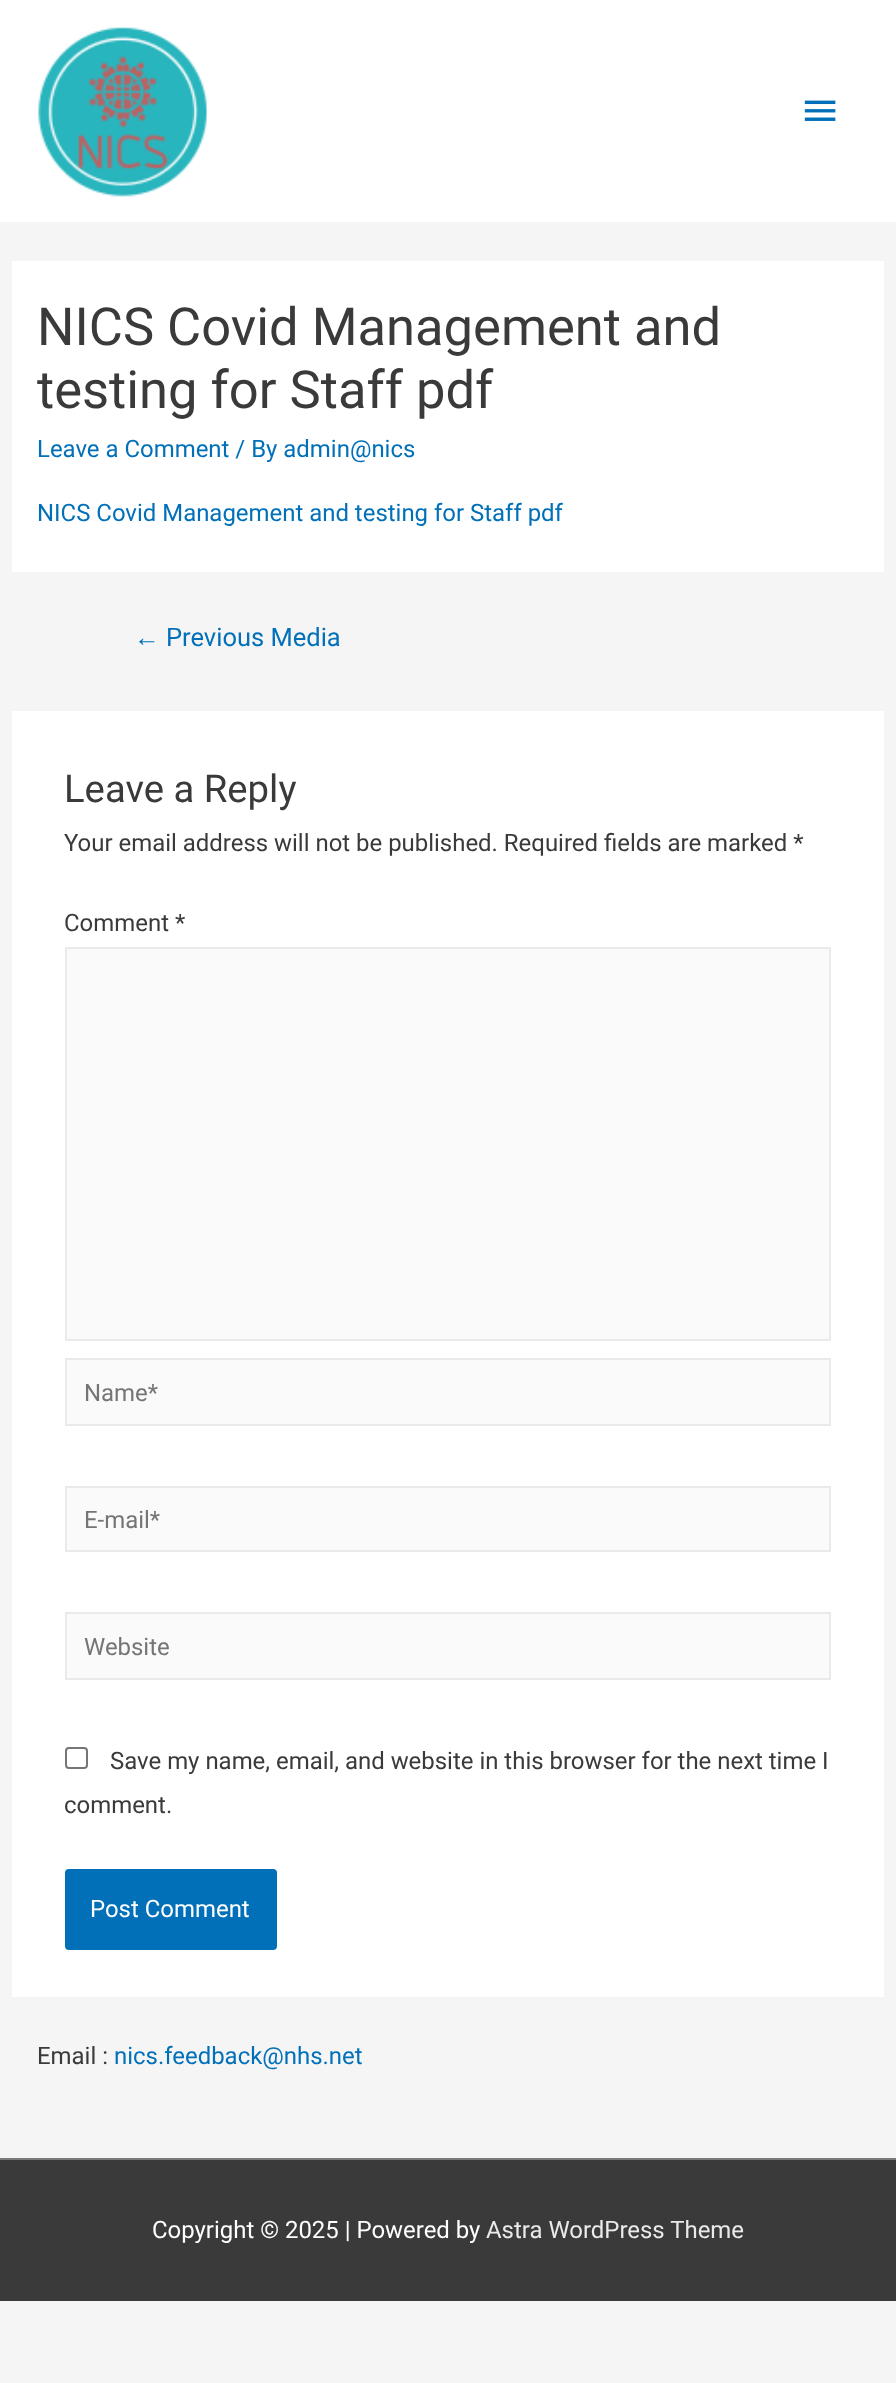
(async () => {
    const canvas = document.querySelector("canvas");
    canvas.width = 896;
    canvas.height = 2383;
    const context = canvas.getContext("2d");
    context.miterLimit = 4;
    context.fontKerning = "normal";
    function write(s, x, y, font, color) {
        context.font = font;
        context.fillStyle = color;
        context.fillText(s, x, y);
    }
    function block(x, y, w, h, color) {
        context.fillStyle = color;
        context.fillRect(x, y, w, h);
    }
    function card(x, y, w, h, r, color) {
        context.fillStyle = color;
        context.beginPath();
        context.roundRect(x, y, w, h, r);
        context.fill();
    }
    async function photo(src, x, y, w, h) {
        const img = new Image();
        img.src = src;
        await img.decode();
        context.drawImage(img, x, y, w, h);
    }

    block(0, 0, 896, 2383, "rgb(245, 245, 245)");
    block(0, 0, 896, 222, "rgb(255, 255, 255)");
    await photo("media/1.png", 38, 26, 170, 171);
    await photo("media/2.png", 804, 100, 32, 21);
    block(12, 261, 872, 311, "rgb(255, 255, 255)");
    write("NICS Covid Management and", 37, 345, "52.5px Roboto", "rgb(58, 58, 58)");
    write("testing for Staff pdf", 37, 408, "52.5px Roboto", "rgb(58, 58, 58)");
    write("Leave a Comment / By admin@nics", 37, 457, "23.95px Roboto", "rgb(1, 112, 185)");
    write("NICS Covid Management and testing for Staff pdf", 37, 521, "23.95px Roboto", "rgb(1, 112, 185)");
    write("←", 134, 646, "25.5px Liberation Sans", "rgb(1, 112, 185)");
    write("Previous Media", 166, 646, "25.5px Roboto", "rgb(1, 112, 185)");
    block(12, 711, 872, 1286, "rgb(255, 255, 255)");
    write("Leave a Reply", 64, 802, "38.25px Roboto", "rgb(58, 58, 58)");
    write("Your email address will not be published. Required fields are marked *", 64, 851, "23.95px Roboto", "rgb(58, 58, 58)");
    write("Comment *", 64, 931, "23.95px Roboto", "rgb(58, 58, 58)");
    context.fillStyle = "rgb(250, 250, 250)";
    context.beginPath();
    context.rect(66, 948, 764, 392);
    context.fill();
    context.strokeStyle = "rgb(234, 234, 234)";
    context.lineWidth = 2;
    context.stroke();
    context.beginPath();
    context.rect(66, 1359, 764, 66);
    context.fill();
    context.stroke();
    write("Name*", 84, 1401, "23.95px Roboto", "rgb(117, 117, 117)");
    context.fillStyle = "rgb(250, 250, 250)";
    context.beginPath();
    context.rect(66, 1487, 764, 64);
    context.fill();
    context.stroke();
    write("E-mail*", 84, 1528, "23.95px Roboto", "rgb(117, 117, 117)");
    context.fillStyle = "rgb(250, 250, 250)";
    context.beginPath();
    context.rect(66, 1613, 764, 66);
    context.fill();
    context.stroke();
    write("Website", 84, 1655, "23.95px Roboto", "rgb(117, 117, 117)");
    context.beginPath();
    context.roundRect(66, 1748, 21, 20, 3);
    context.strokeStyle = "rgb(118, 118, 118)";
    context.stroke();
    write("Save my name, email, and website in this browser for the next time I", 110, 1769, "23.95px Roboto", "rgb(58, 58, 58)");
    write("comment.", 64, 1813, "23.95px Roboto", "rgb(58, 58, 58)");
    card(65, 1869, 212, 81, 4, "rgb(1, 112, 185)");
    write("Post Comment", 90, 1917, "23.95px Roboto", "rgb(255, 255, 255)");
    write("Email :", 37, 2064, "23.95px Roboto", "rgb(58, 58, 58)");
    write("nics.feedback@nhs.net", 114, 2064, "23.95px Roboto", "rgb(1, 112, 185)");
    block(0, 2158, 896, 2, "rgb(122, 122, 122)");
    block(0, 2160, 896, 141, "rgb(58, 58, 58)");
    write("Copyright © 2025 | Powered by", 152, 2238, "23.95px Roboto", "rgb(255, 255, 255)");
    write("Astra WordPress Theme", 486, 2238, "23.95px Roboto", "rgb(234, 234, 234)");
})();
